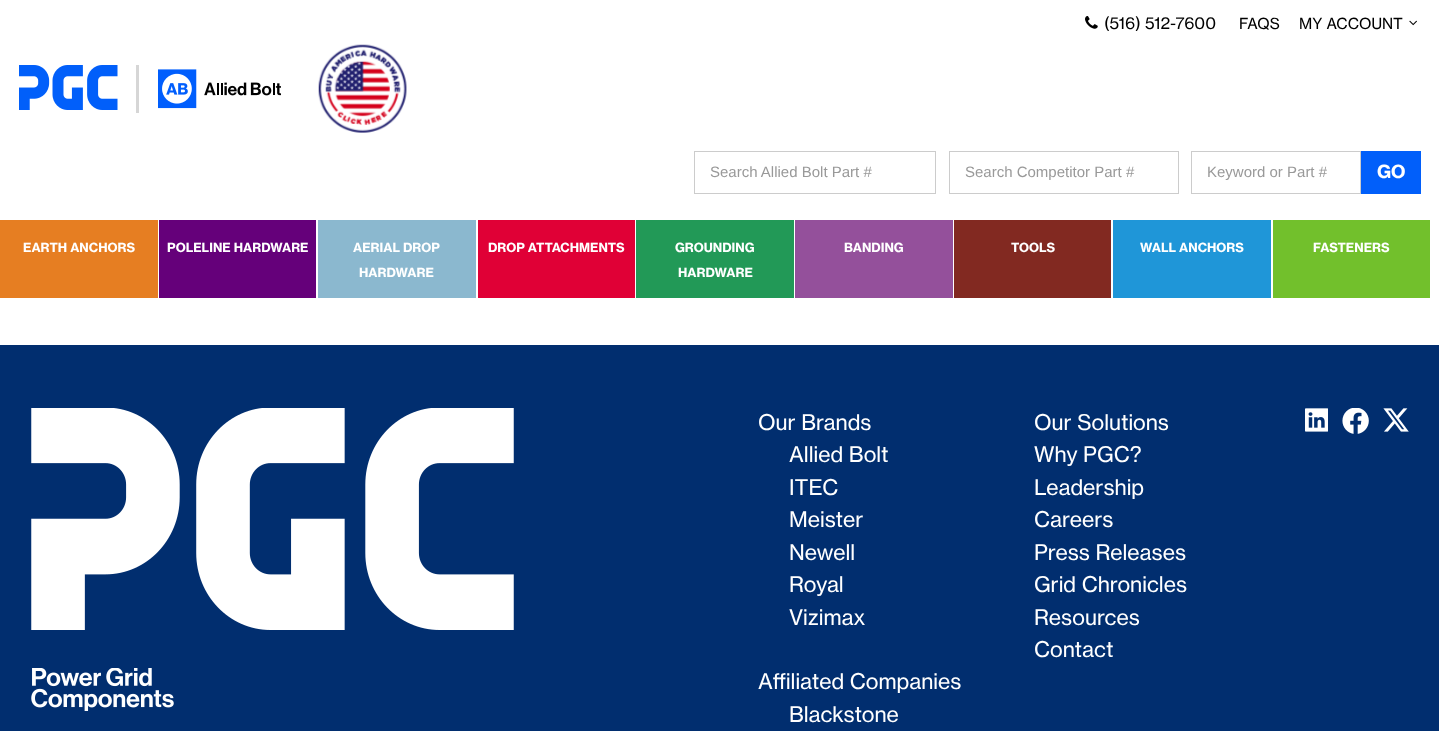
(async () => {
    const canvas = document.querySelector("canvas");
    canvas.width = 1439;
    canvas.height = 731;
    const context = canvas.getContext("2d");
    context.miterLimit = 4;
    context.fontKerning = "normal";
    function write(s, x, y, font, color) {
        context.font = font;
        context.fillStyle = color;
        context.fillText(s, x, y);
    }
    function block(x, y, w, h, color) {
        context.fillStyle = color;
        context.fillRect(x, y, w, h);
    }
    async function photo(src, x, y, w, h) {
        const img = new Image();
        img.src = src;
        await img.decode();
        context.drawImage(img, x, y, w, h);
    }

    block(0, 0, 1439, 731, "rgb(255, 255, 255)");
    await photo("media/1.png", 1085, 16, 13, 13);
    write("(516) 512-7600", 1104, 29, "16.25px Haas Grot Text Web", "rgb(0, 0, 0)");
    write("FAQS", 1239, 29, "15px Haas Grot Text Web", "rgb(0, 0, 0)");
    write("MY ACCOUNT", 1299, 29, "15px Haas Grot Text Web", "rgb(0, 0, 0)");
    await photo("media/2.png", 1409, 20, 8, 6);
    await photo("media/3.png", 19, 65, 99, 45);
    block(136, 65, 3, 48, "rgb(214, 214, 214)");
    await photo("media/4.png", 158, 69, 123, 40);
    await photo("media/5.png", 318, 44, 89, 89);
    context.strokeStyle = "rgb(204, 204, 204)";
    context.strokeRect(694.5, 151.5, 241, 42);
    write("Search Allied Bolt Part #", 710, 177, "15px Liberation Sans", "rgb(153, 153, 153)");
    context.strokeRect(949.5, 151.5, 229, 42);
    write("Search Competitor Part #", 965, 177, "15px Liberation Sans", "rgb(153, 153, 153)");
    context.strokeRect(1191.5, 151.5, 169, 42);
    write("Keyword or Part #", 1207, 177, "15px Liberation Sans", "rgb(153, 153, 153)");
    block(1361, 151, 60, 43, "rgb(1, 95, 250)");
    write("GO", 1377, 178, "bold 18px Haas Grot Text Web", "rgb(255, 255, 255)");
    block(0, 220, 158, 78, "rgb(230, 126, 34)");
    write("EARTH ANCHORS", 23, 252, "bold 12.5px Haas Grot Text Web", "rgb(255, 255, 255)");
    block(159, 220, 157, 78, "rgb(101, 0, 122)");
    write("POLELINE HARDWARE", 167, 252, "bold 12.5px Haas Grot Text Web", "rgb(255, 255, 255)");
    block(318, 220, 158, 78, "rgb(139, 184, 207)");
    write("AERIAL DROP", 353, 252, "bold 12.5px Haas Grot Text Web", "rgb(255, 255, 255)");
    write("HARDWARE", 359, 277, "bold 12.5px Haas Grot Text Web", "rgb(255, 255, 255)");
    block(478, 220, 157, 78, "rgb(224, 0, 54)");
    write("DROP ATTACHMENTS", 488, 252, "bold 12.5px Haas Grot Text Web", "rgb(255, 255, 255)");
    block(636, 220, 158, 78, "rgb(34, 153, 87)");
    write("GROUNDING", 675, 252, "bold 12.5px Haas Grot Text Web", "rgb(255, 255, 255)");
    write("HARDWARE", 678, 277, "bold 12.5px Haas Grot Text Web", "rgb(255, 255, 255)");
    block(795, 220, 158, 78, "rgb(148, 80, 155)");
    write("BANDING", 844, 252, "bold 12.5px Haas Grot Text Web", "rgb(255, 255, 255)");
    block(954, 220, 157, 78, "rgb(130, 41, 33)");
    write("TOOLS", 1011, 252, "bold 12.5px Haas Grot Text Web", "rgb(255, 255, 255)");
    block(1113, 220, 158, 78, "rgb(31, 150, 216)");
    write("WALL ANCHORS", 1140, 252, "bold 12.5px Haas Grot Text Web", "rgb(255, 255, 255)");
    block(1273, 220, 157, 78, "rgb(114, 192, 44)");
    write("FASTENERS", 1313, 252, "bold 12.5px Haas Grot Text Web", "rgb(255, 255, 255)");
    block(0, 345, 1439, 386, "rgb(1, 46, 111)");
    await photo("media/6.png", 31, 408, 483, 222);
    await photo("media/7.png", 31, 668, 143, 43);
    write("Our Brands", 758, 430, "21.25px Haas Grot Text Web", "rgb(255, 255, 255)");
    write("Allied Bolt", 789, 462, "21.25px Haas Grot Text Web", "rgb(255, 255, 255)");
    write("ITEC", 789, 495, "21.25px Haas Grot Text Web", "rgb(255, 255, 255)");
    write("Meister", 789, 527, "21.25px Haas Grot Text Web", "rgb(255, 255, 255)");
    write("Newell", 789, 560, "21.25px Haas Grot Text Web", "rgb(255, 255, 255)");
    write("Royal", 789, 592, "21.25px Haas Grot Text Web", "rgb(255, 255, 255)");
    write("Vizimax", 789, 625, "21.25px Haas Grot Text Web", "rgb(255, 255, 255)");
    write("Affiliated Companies", 758, 689, "21.25px Haas Grot Text Web", "rgb(255, 255, 255)");
    write("Blackstone", 789, 722, "21.25px Haas Grot Text Web", "rgb(255, 255, 255)");
    write("Our Solutions", 1034, 430, "21.25px Haas Grot Text Web", "rgb(255, 255, 255)");
    write("Why PGC?", 1034, 462, "21.25px Haas Grot Text Web", "rgb(255, 255, 255)");
    write("Leadership", 1034, 495, "21.25px Haas Grot Text Web", "rgb(255, 255, 255)");
    write("Careers", 1034, 527, "21.25px Haas Grot Text Web", "rgb(255, 255, 255)");
    write("Press Releases", 1034, 560, "21.25px Haas Grot Text Web", "rgb(255, 255, 255)");
    write("Grid Chronicles", 1034, 592, "21.25px Haas Grot Text Web", "rgb(255, 255, 255)");
    write("Resources", 1034, 625, "21.25px Haas Grot Text Web", "rgb(255, 255, 255)");
    write("Contact", 1034, 657, "21.25px Haas Grot Text Web", "rgb(255, 255, 255)");
    await photo("media/8.png", 1305, 408, 23, 24);
    await photo("media/9.png", 1342, 408, 27, 26);
    await photo("media/10.png", 1383, 408, 26, 24);
})();
